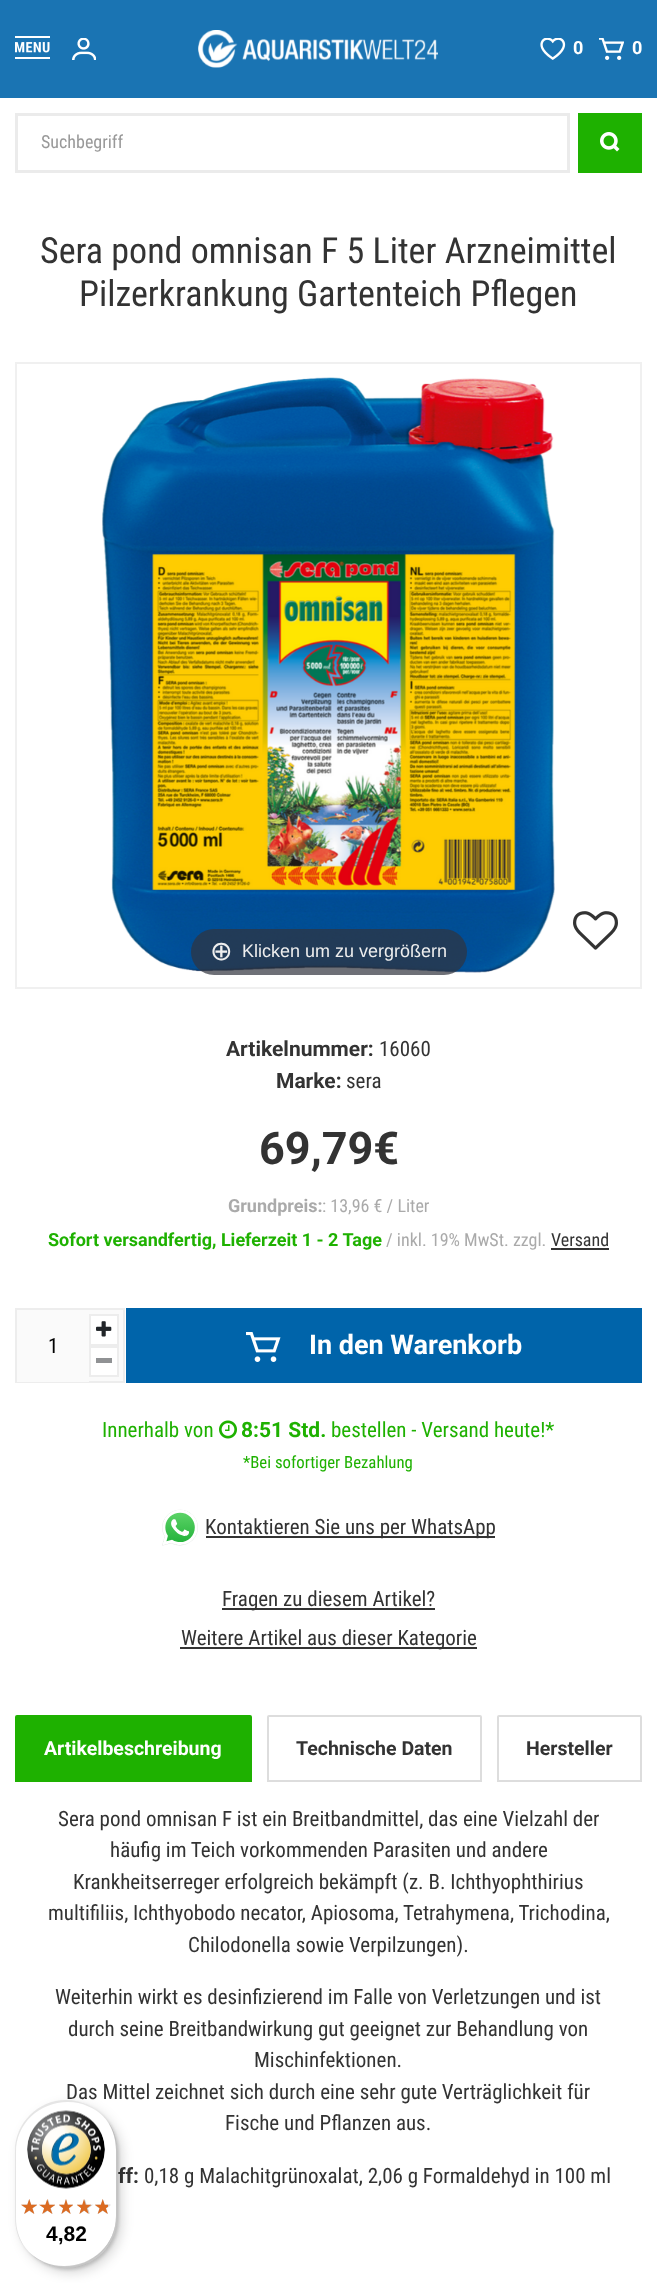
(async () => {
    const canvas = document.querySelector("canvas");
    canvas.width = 657;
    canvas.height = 2283;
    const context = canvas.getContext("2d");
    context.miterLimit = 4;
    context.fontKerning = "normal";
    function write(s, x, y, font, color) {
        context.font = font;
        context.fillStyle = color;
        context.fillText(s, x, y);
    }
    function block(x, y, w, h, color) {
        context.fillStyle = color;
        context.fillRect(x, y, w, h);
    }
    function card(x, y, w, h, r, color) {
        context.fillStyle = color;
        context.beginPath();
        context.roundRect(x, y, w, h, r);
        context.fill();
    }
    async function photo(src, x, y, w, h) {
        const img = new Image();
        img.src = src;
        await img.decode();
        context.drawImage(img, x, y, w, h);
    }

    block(0, 0, 657, 2283, "rgb(255, 255, 255)");
    block(0, 0, 657, 98, "rgb(26, 116, 179)");
    block(15, 36, 35, 2, "rgb(255, 255, 255)");
    await photo("media/1.png", 15, 42, 35, 11);
    block(15, 57, 35, 2, "rgb(255, 255, 255)");
    await photo("media/2.png", 72, 38, 24, 22);
    await photo("media/3.png", 198, 30, 240, 38);
    await photo("media/4.png", 540, 38, 26, 22);
    write("0", 573, 54, "bold 18px Roboto", "rgb(255, 255, 255)");
    await photo("media/5.png", 599, 38, 25, 22);
    write("0", 632, 54, "bold 18px Roboto", "rgb(255, 255, 255)");
    context.strokeStyle = "rgb(235, 235, 235)";
    context.lineWidth = 3;
    context.strokeRect(16.5, 114.5, 552, 57);
    write("Suchbegriff", 41, 148, "18px Roboto Condensed", "rgb(153, 153, 153)");
    block(578, 113, 64, 60, "rgb(30, 177, 0)");
    await photo("media/6.png", 600, 132, 20, 20);
    write("Sera pond omnisan F 5 Liter Arzneimittel", 40, 263, "36px Roboto Condensed", "rgb(51, 51, 51)");
    write("Pilzerkrankung Gartenteich Pflegen", 79, 306, "36px Roboto Condensed", "rgb(51, 51, 51)");
    context.strokeStyle = "rgb(240, 240, 240)";
    context.lineWidth = 2;
    context.strokeRect(16, 363, 625, 625);
    await photo("media/7.png", 102, 377, 453, 596);
    card(191, 929, 276, 46, 23, "rgba(49, 51, 61, 0.7)");
    write("⊕", 210, 960, "27px DejaVu Sans", "rgb(238, 238, 238)");
    write("Klicken um zu vergrößern", 242, 957, "18px Liberation Sans", "rgb(238, 238, 238)");
    await photo("media/8.png", 573, 911, 45, 39);
    write("Artikelnummer:", 226, 1056, "bold 21px Roboto", "rgb(51, 51, 51)");
    write("16060", 379, 1056, "21px Roboto Condensed", "rgb(51, 51, 51)");
    write("Marke:", 276, 1088, "bold 21px Roboto", "rgb(51, 51, 51)");
    write("sera", 346, 1088, "21px Roboto Condensed", "rgb(51, 51, 51)");
    write("69,79€", 259, 1164, "bold 45px Roboto", "rgb(51, 51, 51)");
    write("Grundpreis:", 228, 1212, "bold 18px Roboto", "rgb(170, 170, 170)");
    write(": 13,96 € / Liter", 322, 1212, "18px Roboto Condensed", "rgb(170, 170, 170)");
    write("Sofort versandfertig, Lieferzeit 1 - 2 Tage", 48, 1246, "bold 18px Roboto", "rgb(30, 177, 0)");
    write("/ inkl. 19% MwSt. zzgl.", 386, 1246, "18px Roboto Condensed", "rgb(170, 170, 170)");
    write("Versand", 551, 1246, "18px Roboto Condensed", "rgb(51, 51, 51)");
    block(551, 1248, 58, 2, "rgb(51, 51, 51)");
    block(89, 1310, 34, 71, "rgb(250, 250, 250)");
    context.strokeStyle = "rgb(237, 237, 237)";
    context.strokeRect(16, 1309, 108, 73);
    block(17, 1310, 72, 72, "rgb(250, 250, 250)");
    write("1", 48, 1353, "21px Roboto Condensed", "rgb(0, 0, 0)");
    context.fillStyle = "rgb(255, 255, 255)";
    context.beginPath();
    context.rect(90, 1315, 28, 30);
    context.fill();
    context.stroke();
    await photo("media/9.png", 96, 1321, 16, 16);
    context.beginPath();
    context.rect(90, 1347, 28, 29);
    context.fill();
    context.stroke();
    block(96, 1358, 16, 5, "rgb(144, 146, 148)");
    block(126, 1308, 516, 75, "rgb(0, 100, 170)");
    await photo("media/10.png", 246, 1332, 35, 30);
    write("In den Warenkorb", 309, 1354, "bold 27px Roboto", "rgb(255, 255, 255)");
    write("Innerhalb von", 102, 1437, "21px Roboto Condensed", "rgb(30, 177, 0)");
    await photo("media/11.png", 219, 1420, 18, 19);
    write("8:51 Std.", 241, 1437, "bold 21px Roboto", "rgb(30, 177, 0)");
    write("bestellen - Versand heute!*", 331, 1437, "21px Roboto Condensed", "rgb(30, 177, 0)");
    write("*Bei sofortiger Bezahlung", 243, 1468, "16.75px Roboto Condensed", "rgb(30, 177, 0)");
    await photo("media/12.png", 162, 1509, 36, 37);
    block(206, 1536, 289, 2, "rgb(51, 51, 51)");
    write("Kontaktieren Sie uns per WhatsApp", 205, 1534, "21px Roboto Condensed", "rgb(51, 51, 51)");
    block(222, 1608, 213, 2, "rgb(51, 51, 51)");
    write("Fragen zu diesem Artikel?", 222, 1606, "21px Roboto Condensed", "rgb(51, 51, 51)");
    block(180, 1647, 297, 2, "rgb(51, 51, 51)");
    write("Weitere Artikel aus dieser Kategorie", 181, 1645, "21px Roboto Condensed", "rgb(51, 51, 51)");
    context.fillStyle = "rgb(30, 177, 0)";
    context.beginPath();
    context.roundRect(16, 1716, 235, 65, [1, 1, 0, 0]);
    context.fill();
    context.strokeStyle = "rgb(30, 177, 0)";
    context.stroke();
    write("Artikelbeschreibung", 44, 1755, "bold 19.5px Roboto", "rgb(255, 255, 255)");
    context.beginPath();
    context.roundRect(268, 1716, 213, 65, [1, 1, 0, 0]);
    context.strokeStyle = "rgb(221, 221, 221)";
    context.stroke();
    write("Technische Daten", 296, 1755, "bold 19.5px Roboto", "rgb(51, 51, 51)");
    context.beginPath();
    context.roundRect(498, 1716, 143, 65, [1, 1, 0, 0]);
    context.stroke();
    write("Hersteller", 526, 1755, "bold 19.5px Roboto", "rgb(51, 51, 51)");
    write("Sera pond omnisan F ist ein Breitbandmittel, das eine Vielzahl der", 58, 1826, "21px Roboto Condensed", "rgb(51, 51, 51)");
    write("häufig im Teich vorkommenden Parasiten und andere", 110, 1857, "21px Roboto Condensed", "rgb(51, 51, 51)");
    write("Krankheitserreger erfolgreich bekämpft (z. B. Ichthyophthirius", 73, 1889, "21px Roboto Condensed", "rgb(51, 51, 51)");
    write("multifiliis, Ichthyobodo necator, Apiosoma, Tetrahymena, Trichodina,", 48, 1920, "21px Roboto Condensed", "rgb(51, 51, 51)");
    write("Chilodonella sowie Verpilzungen).", 188, 1952, "21px Roboto Condensed", "rgb(51, 51, 51)");
    write("Weiterhin wirkt es desinfizierend im Falle von Verletzungen und ist", 55, 2004, "21px Roboto Condensed", "rgb(51, 51, 51)");
    write("durch seine Breitbandwirkung gut geeignet zur Behandlung von", 68, 2036, "21px Roboto Condensed", "rgb(51, 51, 51)");
    write("Mischinfektionen.", 254, 2067, "21px Roboto Condensed", "rgb(51, 51, 51)");
    write("Das Mittel zeichnet sich durch eine sehr gute Verträglichkeit für", 66, 2099, "21px Roboto Condensed", "rgb(51, 51, 51)");
    write("Fische und Pflanzen aus.", 225, 2130, "21px Roboto Condensed", "rgb(51, 51, 51)");
    write("ff:", 118, 2183, "bold 21px Roboto", "rgb(51, 51, 51)");
    write("0,18 g Malachitgrünoxalat, 2,06 g Formaldehyd in 100 ml", 144, 2183, "21px Roboto Condensed", "rgb(51, 51, 51)");
    context.fillStyle = "rgba(0, 0, 0, 0.15)";
    context.filter = "blur(6px)";
    context.beginPath();
    context.roundRect(20, 2105, 102, 168, 51);
    context.fill();
    context.filter = "none";
    context.filter = "blur(1.5px)";
    context.beginPath();
    context.roundRect(17, 2102, 102, 168, 51);
    context.fill();
    context.filter = "none";
    card(15, 2100, 102, 168, 51, "rgb(255, 255, 255)");
    context.fillStyle = "rgba(0, 0, 0, 0.1)";
    context.beginPath();
    context.moveTo(68, 2102);
    context.bezierCurveTo(82, 2102, 95, 2108, 104, 2117);
    context.bezierCurveTo(95, 2107, 81, 2100, 66, 2100);
    context.bezierCurveTo(38, 2100, 15, 2123, 15, 2151);
    context.lineTo(15, 2217);
    context.bezierCurveTo(15, 2228, 18, 2238, 24, 2246);
    context.bezierCurveTo(19, 2238, 16, 2228, 16, 2218);
    context.lineTo(16, 2152);
    context.bezierCurveTo(16, 2124, 39, 2102, 68, 2102);
    context.closePath();
    context.fill();
    context.fillStyle = "rgba(0, 0, 0, 0.2)";
    context.beginPath();
    context.moveTo(28, 2251);
    context.bezierCurveTo(37, 2261, 51, 2268, 66, 2268);
    context.bezierCurveTo(94, 2268, 117, 2245, 117, 2217);
    context.lineTo(117, 2151);
    context.bezierCurveTo(117, 2140, 114, 2130, 108, 2122);
    context.bezierCurveTo(113, 2130, 116, 2140, 116, 2150);
    context.lineTo(116, 2216);
    context.bezierCurveTo(116, 2244, 93, 2266, 64, 2266);
    context.bezierCurveTo(50, 2266, 37, 2260, 28, 2251);
    context.closePath();
    context.fill();
    context.fillStyle = "rgba(50, 50, 50, 0.2)";
    context.beginPath();
    context.moveTo(27, 2250);
    context.bezierCurveTo(37, 2261, 51, 2268, 66, 2268);
    context.bezierCurveTo(94, 2268, 117, 2245, 117, 2217);
    context.lineTo(117, 2151);
    context.bezierCurveTo(117, 2136, 110, 2122, 99, 2112);
    context.bezierCurveTo(110, 2122, 116, 2135, 116, 2150);
    context.lineTo(116, 2216);
    context.bezierCurveTo(116, 2244, 93, 2267, 65, 2267);
    context.bezierCurveTo(50, 2267, 37, 2261, 27, 2250);
    context.closePath();
    context.fill();
    context.fillStyle = "rgba(255, 255, 255, 0.3)";
    context.beginPath();
    context.moveTo(27, 2250);
    context.bezierCurveTo(37, 2261, 51, 2268, 66, 2268);
    context.bezierCurveTo(94, 2268, 117, 2245, 117, 2217);
    context.lineTo(117, 2151);
    context.bezierCurveTo(117, 2136, 110, 2122, 99, 2112);
    context.bezierCurveTo(110, 2122, 116, 2135, 116, 2150);
    context.lineTo(116, 2216);
    context.bezierCurveTo(116, 2244, 93, 2267, 65, 2267);
    context.bezierCurveTo(50, 2267, 37, 2261, 27, 2250);
    context.closePath();
    context.fill();
    await photo("media/13.png", 27, 2110, 78, 79);
    await photo("media/14.png", 21, 2199, 16, 15);
    await photo("media/15.png", 41, 2199, 14, 15);
    await photo("media/16.png", 59, 2199, 14, 15);
    await photo("media/17.png", 77, 2199, 16, 15);
    await photo("media/18.png", 95, 2199, 16, 15);
    await photo("media/19.png", 21, 2199, 16, 15);
    await photo("media/20.png", 39, 2199, 16, 15);
    await photo("media/21.png", 59, 2199, 14, 15);
    await photo("media/22.png", 77, 2199, 14, 15);
    await photo("media/23.png", 95, 2199, 13, 15);
    write("4,82", 46, 2241, "bold 21px Liberation Sans", "rgb(0, 0, 0)");
})();
